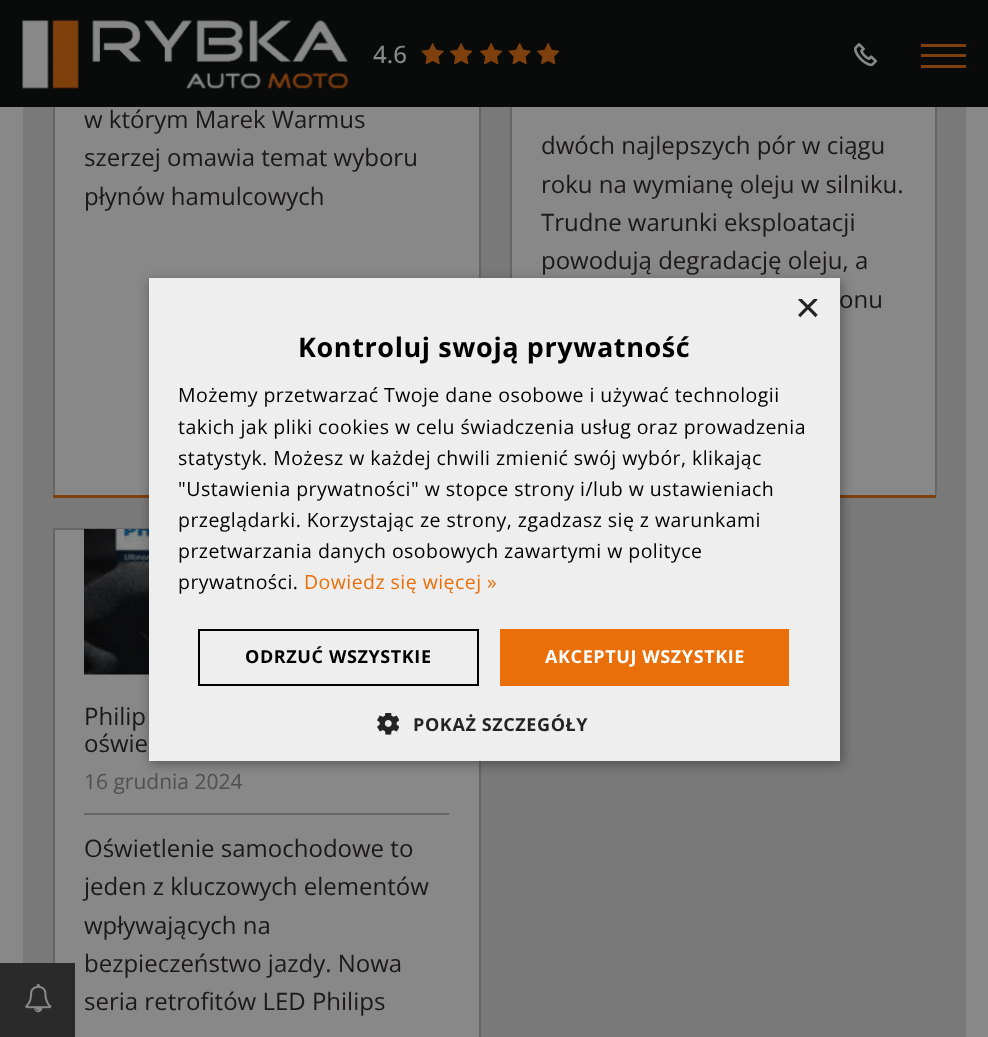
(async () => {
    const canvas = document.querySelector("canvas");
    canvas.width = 988;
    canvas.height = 1037;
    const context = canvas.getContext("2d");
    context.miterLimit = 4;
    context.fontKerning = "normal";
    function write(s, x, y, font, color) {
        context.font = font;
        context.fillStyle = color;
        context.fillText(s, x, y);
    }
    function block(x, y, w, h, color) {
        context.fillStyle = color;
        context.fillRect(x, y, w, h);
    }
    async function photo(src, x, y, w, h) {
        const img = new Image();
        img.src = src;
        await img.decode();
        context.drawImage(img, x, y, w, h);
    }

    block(0, 0, 988, 1037, "rgb(136, 136, 136)");
    block(0, 0, 988, 107, "rgb(9, 10, 10)");
    await photo("media/1.png", 22, 20, 327, 69);
    write("4.6", 373, 63, "500 24px Open Sans", "rgb(136, 136, 136)");
    await photo("media/2.png", 421, 43, 23, 22);
    await photo("media/3.png", 450, 43, 23, 22);
    await photo("media/3.png", 480, 43, 23, 22);
    await photo("media/2.png", 508, 43, 23, 22);
    await photo("media/3.png", 537, 43, 23, 22);
    await photo("media/4.png", 853, 43, 25, 24);
    block(921, 54, 45, 3, "rgb(126, 64, 13)");
    block(921, 44, 45, 3, "rgb(126, 64, 13)");
    block(921, 65, 45, 3, "rgb(126, 64, 13)");
    block(23, 107, 943, 930, "rgb(121, 121, 121)");
    block(55, 530, 424, 507, "rgb(136, 136, 136)");
    block(0, 963, 75, 74, "rgb(42, 42, 42)");
    await photo("media/5.png", 25, 983, 27, 30);
    block(53, 495, 96, 3, "rgb(126, 64, 13)");
    block(55, 107, 424, 388, "rgb(136, 136, 136)");
    block(479, 107, 2, 171, "rgb(102, 102, 102)");
    block(53, 107, 2, 388, "rgb(102, 102, 102)");
    write("w którym Marek Warmus", 84, 128, "24px Open Sans", "rgb(26, 24, 25)");
    write("szerzej omawia temat wyboru", 84, 166, "24px Open Sans", "rgb(26, 24, 25)");
    write("płynów hamulcowych", 84, 205, "24px Open Sans", "rgb(26, 24, 25)");
    block(840, 495, 96, 3, "rgb(126, 64, 13)");
    block(512, 107, 423, 388, "rgb(136, 136, 136)");
    block(935, 107, 2, 388, "rgb(102, 102, 102)");
    block(510, 107, 2, 171, "rgb(102, 102, 102)");
    write("dwóch najlepszych pór w ciągu", 541, 154, "24px Open Sans", "rgb(26, 24, 25)");
    write("roku na wymianę oleju w silniku.", 541, 193, "24px Open Sans", "rgb(26, 24, 25)");
    write("Trudne warunki eksploatacji", 541, 231, "24px Open Sans", "rgb(26, 24, 25)");
    write("powodują degradację oleju, a", 541, 269, "24px Open Sans", "rgb(26, 24, 25)");
    write("onu", 839, 308, "24px Open Sans", "rgb(26, 24, 25)");
    block(53, 528, 96, 2, "rgb(102, 102, 102)");
    block(479, 761, 2, 276, "rgb(102, 102, 102)");
    block(53, 528, 2, 435, "rgb(102, 102, 102)");
    await photo("media/6.png", 84, 529, 65, 146);
    write("Philip", 84, 725, "24px Open Sans", "rgb(26, 24, 25)");
    write("oświe", 84, 752, "24px Open Sans", "rgb(26, 24, 25)");
    block(84, 813, 365, 2, "rgb(102, 102, 102)");
    write("16 grudnia 2024", 84, 789, "21px Open Sans", "rgb(80, 80, 80)");
    write("Oświetlenie samochodowe to", 84, 857, "24px Open Sans", "rgb(26, 24, 25)");
    write("jeden z kluczowych elementów", 84, 895, "24px Open Sans", "rgb(26, 24, 25)");
    write("wpływających na", 84, 934, "24px Open Sans", "rgb(26, 24, 25)");
    write("bezpieczeństwo jazdy. Nowa", 84, 972, "24px Open Sans", "rgb(26, 24, 25)");
    write("seria retrofitów LED Philips", 84, 1010, "24px Open Sans", "rgb(26, 24, 25)");
    context.fillStyle = "rgba(0, 0, 0, 0.35)";
    context.filter = "blur(6px)";
    context.beginPath();
    context.rect(150, 281, 692, 483);
    context.fill();
    context.filter = "none";
    block(149, 278, 691, 483, "rgb(238, 238, 238)");
    context.save();
    context.beginPath();
    context.rect(795, 299, 23, 22);
    context.clip();
    write("×", 795, 322, "44px Liberation Sans", "rgb(36, 36, 36)");
    context.restore();
    context.letterSpacing = "0.6px";
    write("Kontroluj swoją prywatność", 298, 357, "bold 27px Open Sans", "rgb(0, 0, 0)");
    context.letterSpacing = "0.45px";
    write("Możemy przetwarzać Twoje dane osobowe i używać technologii", 178, 402, "19.5px Open Sans", "rgb(0, 0, 0)");
    write("takich jak pliki cookies w celu świadczenia usług oraz prowadzenia", 178, 434, "19.5px Open Sans", "rgb(0, 0, 0)");
    write("statystyk. Możesz w każdej chwili zmienić swój wybór, klikając", 178, 465, "19.5px Open Sans", "rgb(0, 0, 0)");
    write("\"Ustawienia prywatności\" w stopce strony i/lub w ustawieniach", 178, 496, "19.5px Open Sans", "rgb(0, 0, 0)");
    write("przeglądarki. Korzystając ze strony, zgadzasz się z warunkami", 178, 527, "19.5px Open Sans", "rgb(0, 0, 0)");
    write("przetwarzania danych osobowych zawartymi w polityce", 178, 558, "19.5px Open Sans", "rgb(0, 0, 0)");
    write("prywatności.", 178, 589, "19.5px Open Sans", "rgb(0, 0, 0)");
    write("Dowiedz się więcej »", 304, 589, "19.5px Open Sans", "rgb(234, 111, 8)");
    context.strokeStyle = "rgb(0, 0, 0)";
    context.lineWidth = 2;
    context.strokeRect(199, 630, 279, 55);
    context.letterSpacing = "0.6px";
    write("ODRZUĆ WSZYSTKIE", 245, 663, "bold 18px Open Sans", "rgb(0, 0, 0)");
    block(500, 629, 289, 57, "rgb(234, 111, 8)");
    write("AKCEPTUJ WSZYSTKIE", 545, 663, "bold 18px Open Sans", "rgb(255, 255, 255)");
    await photo("media/7.png", 377, 713, 22, 22);
    write("POKAŻ SZCZEGÓŁY", 413, 731, "bold 18px Open Sans", "rgb(36, 36, 36)");
})();
